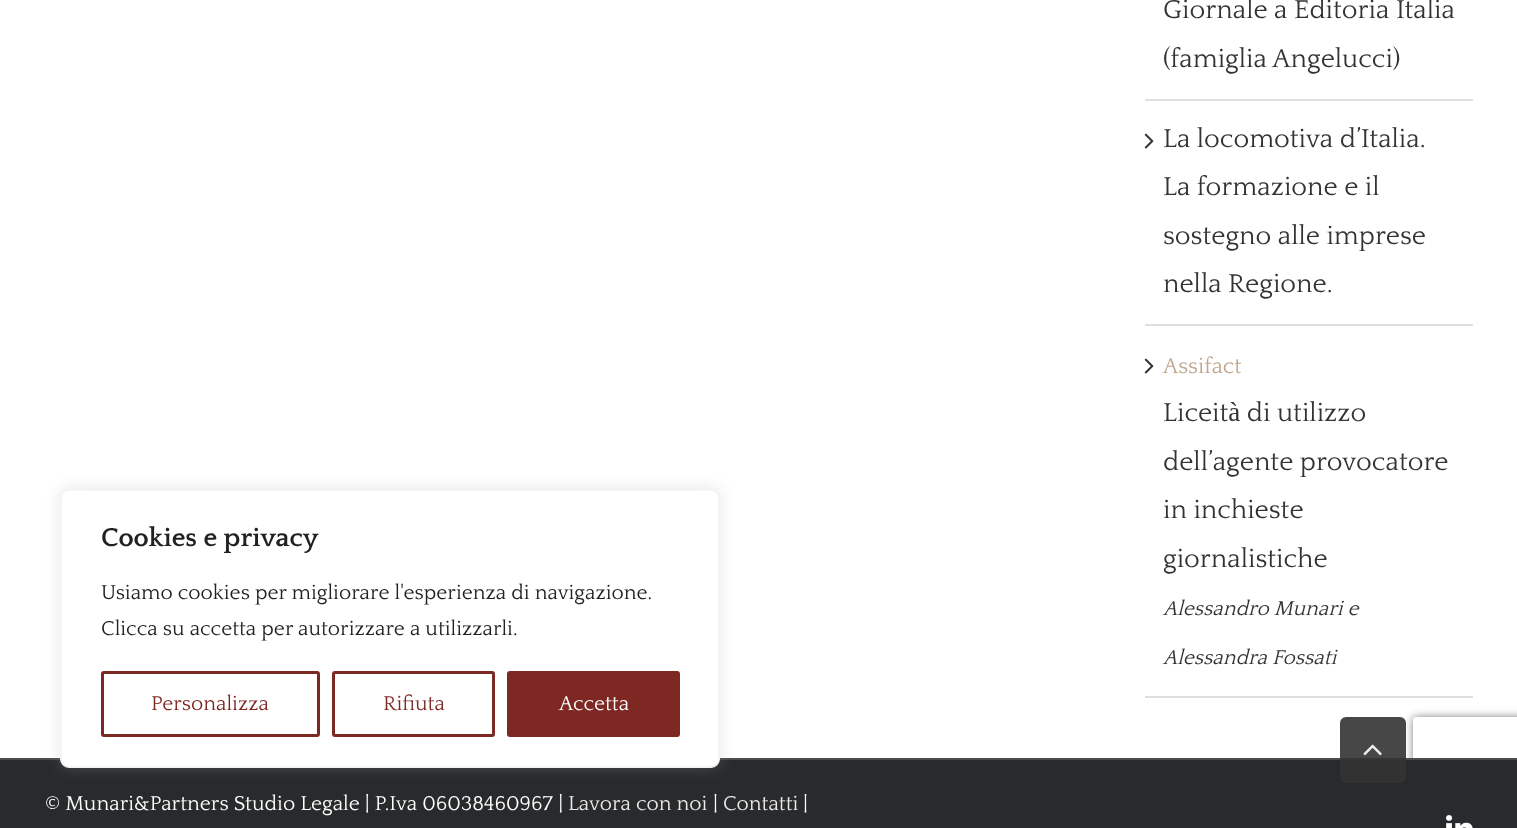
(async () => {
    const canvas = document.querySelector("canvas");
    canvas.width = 1517;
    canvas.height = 828;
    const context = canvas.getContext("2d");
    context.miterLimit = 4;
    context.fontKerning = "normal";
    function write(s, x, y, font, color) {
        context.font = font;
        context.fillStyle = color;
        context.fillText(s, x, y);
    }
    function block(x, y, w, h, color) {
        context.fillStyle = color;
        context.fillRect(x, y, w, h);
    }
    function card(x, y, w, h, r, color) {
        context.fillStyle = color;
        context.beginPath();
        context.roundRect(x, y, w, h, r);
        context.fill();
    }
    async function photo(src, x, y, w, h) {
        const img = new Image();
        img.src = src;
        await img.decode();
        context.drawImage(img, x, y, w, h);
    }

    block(0, 0, 1517, 828, "rgb(255, 255, 255)");
    block(1145, 99, 328, 2, "rgb(224, 222, 222)");
    write("Giornale a Editoria Italia", 1163, 18, "27px Quattrocento", "rgb(51, 51, 51)");
    write("(famiglia Angelucci)", 1163, 67, "27px Quattrocento", "rgb(51, 51, 51)");
    block(1145, 324, 328, 2, "rgb(224, 222, 222)");
    await photo("media/1.png", 1144, 133, 10, 16);
    write("La locomotiva d’Italia.", 1163, 147, "27px Quattrocento", "rgb(51, 51, 51)");
    write("La formazione e il", 1163, 195, "27px Quattrocento", "rgb(51, 51, 51)");
    write("sostegno alle imprese", 1163, 244, "27px Quattrocento", "rgb(51, 51, 51)");
    write("nella Regione.", 1163, 292, "27px Quattrocento", "rgb(51, 51, 51)");
    block(1145, 696, 328, 2, "rgb(224, 222, 222)");
    await photo("media/1.png", 1144, 358, 10, 16);
    write("Assifact", 1163, 373, "22.5px Quattrocento", "rgb(191, 167, 141)");
    write("Liceità di utilizzo", 1163, 421, "27px Quattrocento", "rgb(51, 51, 51)");
    write("dell’agente provocatore", 1163, 470, "27px Quattrocento", "rgb(51, 51, 51)");
    write("in inchieste", 1163, 518, "27px Quattrocento", "rgb(51, 51, 51)");
    write("giornalistiche", 1163, 567, "27px Quattrocento", "rgb(51, 51, 51)");
    write("Alessandro Munari e", 1163, 615, "italic 21px Quattrocento", "rgb(51, 51, 51)");
    write("Alessandra Fossati", 1163, 664, "italic 21px Quattrocento", "rgb(51, 51, 51)");
    context.save();
    context.beginPath();
    context.moveTo(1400, 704);
    context.lineTo(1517, 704);
    context.lineTo(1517, 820);
    context.lineTo(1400, 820);
    context.closePath();
    context.moveTo(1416, 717);
    context.lineTo(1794, 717);
    context.bezierCurveTo(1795.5, 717, 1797, 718.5, 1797, 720);
    context.lineTo(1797, 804);
    context.bezierCurveTo(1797, 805.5, 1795.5, 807, 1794, 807);
    context.lineTo(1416, 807);
    context.bezierCurveTo(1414.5, 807, 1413, 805.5, 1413, 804);
    context.lineTo(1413, 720);
    context.bezierCurveTo(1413, 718.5, 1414.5, 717, 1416, 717);
    context.closePath();
    context.clip("evenodd");
    context.fillStyle = "rgb(128, 128, 128)";
    context.filter = "blur(4px)";
    context.beginPath();
    context.roundRect(1413, 717, 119, 90, 3);
    context.fill();
    context.filter = "none";
    context.restore();
    block(0, 760, 1517, 68, "rgb(40, 42, 43)");
    block(0, 758, 1517, 2, "rgb(75, 76, 77)");
    write("© Munari&Partners Studio Legale | P.Iva 06038460967 |", 45, 810, "21px Quattrocento", "rgb(255, 255, 255)");
    write("Lavora con noi", 568, 810, "21px Quattrocento", "rgb(235, 234, 234)");
    write("|", 713, 810, "21px Quattrocento", "rgb(255, 255, 255)");
    write("Contatti", 723, 810, "21px Quattrocento", "rgb(235, 234, 234)");
    write("|", 803, 810, "21px Quattrocento", "rgb(255, 255, 255)");
    await photo("media/2.png", 1446, 815, 27, 13);
    context.fillStyle = "rgba(172, 171, 171, 0.3)";
    context.filter = "blur(7.5px)";
    context.beginPath();
    context.roundRect(60, 488, 660, 279, 9);
    context.fill();
    context.filter = "none";
    context.fillStyle = "rgb(255, 255, 255)";
    context.beginPath();
    context.roundRect(61, 490, 658, 277, 8);
    context.fill();
    context.strokeStyle = "rgb(244, 244, 244)";
    context.lineWidth = 2;
    context.stroke();
    write("Cookies e privacy", 101, 546, "bold 27px Quattrocento", "rgb(33, 33, 33)");
    write("Usiamo cookies per migliorare l'esperienza di navigazione.", 101, 599, "21px Quattrocento", "rgb(33, 33, 33)");
    write("Clicca su accetta per autorizzare a utilizzarli.", 101, 635, "21px Quattrocento", "rgb(33, 33, 33)");
    context.beginPath();
    context.roundRect(102.5, 672.5, 216, 63, 1.5);
    context.strokeStyle = "rgb(125, 40, 35)";
    context.lineWidth = 3;
    context.stroke();
    write("Personalizza", 151, 710, "21px Quattrocento", "rgb(125, 40, 35)");
    context.beginPath();
    context.roundRect(333.5, 672.5, 160, 63, 1.5);
    context.stroke();
    write("Rifiuta", 383, 710, "21px Quattrocento", "rgb(125, 40, 35)");
    context.beginPath();
    context.roundRect(508.5, 672.5, 170, 63, 1.5);
    context.fill();
    context.stroke();
    write("Accetta", 559, 710, "21px Quattrocento", "rgb(255, 255, 255)");
    card(1340, 717, 66, 66, 6, "rgba(51, 51, 51, 0.9)");
    await photo("media/3.png", 1363, 744, 19, 12);
})();
